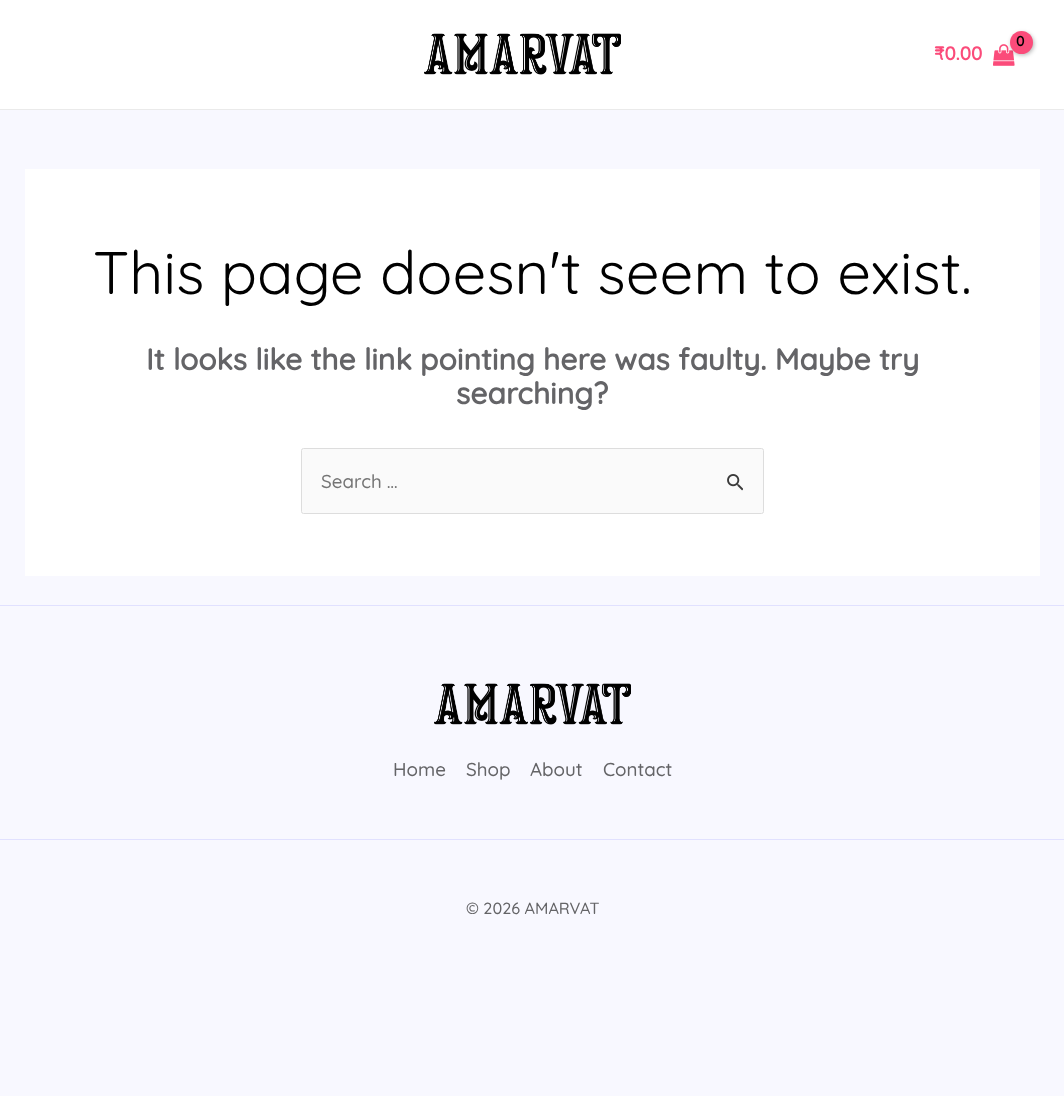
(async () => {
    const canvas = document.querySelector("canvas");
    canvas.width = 1064;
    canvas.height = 1096;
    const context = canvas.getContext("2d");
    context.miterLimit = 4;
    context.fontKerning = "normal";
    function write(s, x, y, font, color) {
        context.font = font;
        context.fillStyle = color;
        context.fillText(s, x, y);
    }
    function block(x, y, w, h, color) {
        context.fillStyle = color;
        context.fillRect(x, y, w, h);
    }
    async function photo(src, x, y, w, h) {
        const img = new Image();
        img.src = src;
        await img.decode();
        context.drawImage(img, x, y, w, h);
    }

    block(0, 0, 1064, 1096, "rgb(248, 248, 255)");
    block(0, 0, 1064, 109, "rgb(255, 255, 255)");
    block(0, 109, 1064, 1, "rgb(234, 234, 234)");
    await photo("media/1.png", 424, 33, 197, 42);
    await photo("media/2.png", 993, 44, 22, 22);
    context.fillStyle = "rgba(0, 0, 0, 0.3)";
    context.filter = "blur(2px)";
    context.beginPath();
    context.roundRect(1011, 33, 23, 22, 11);
    context.fill();
    context.filter = "none";
    context.fillStyle = "rgb(251, 75, 122)";
    context.beginPath();
    context.arc(1021.5, 42.5, 11.5, 0, Math.PI * 2);
    context.fill();
    context.letterSpacing = "-1px";
    write("0", 1016, 46, "bold 14px Quicksand", "rgb(0, 0, 0)");
    context.letterSpacing = "0px";
    write("₹0.00", 934, 60, "bold 18.75px Quicksand", "rgb(251, 75, 122)");
    block(25, 169, 1015, 407, "rgb(255, 255, 255)");
    write("This page doesn't seem to exist.", 93, 294, "60px Quicksand", "rgb(0, 0, 0)");
    write("It looks like the link pointing here was faulty. Maybe try", 146, 370, "bold 30px Quicksand", "rgb(100, 100, 103)");
    write("searching?", 456, 404, "bold 30px Quicksand", "rgb(100, 100, 103)");
    context.fillStyle = "rgb(250, 250, 250)";
    context.beginPath();
    context.roundRect(301.5, 448.5, 462, 65, 2);
    context.fill();
    context.strokeStyle = "rgb(221, 221, 221)";
    context.stroke();
    write("Search …", 321, 488, "500 18.75px Quicksand", "rgb(117, 117, 117)");
    await photo("media/3.png", 727, 474, 16, 17);
    block(0, 605, 1064, 1, "rgb(225, 225, 255)");
    await photo("media/4.png", 434, 683, 197, 42);
    write("Home", 393, 776, "500 18.75px Quicksand", "rgb(100, 100, 103)");
    write("Shop", 466, 776, "500 18.75px Quicksand", "rgb(100, 100, 103)");
    write("About", 530, 776, "500 18.75px Quicksand", "rgb(100, 100, 103)");
    write("Contact", 603, 776, "500 18.75px Quicksand", "rgb(100, 100, 103)");
    block(0, 839, 1064, 1, "rgb(225, 225, 255)");
    write("© 2026 AMARVAT", 466, 914, "500 16.25px Quicksand", "rgb(100, 100, 103)");
})();
